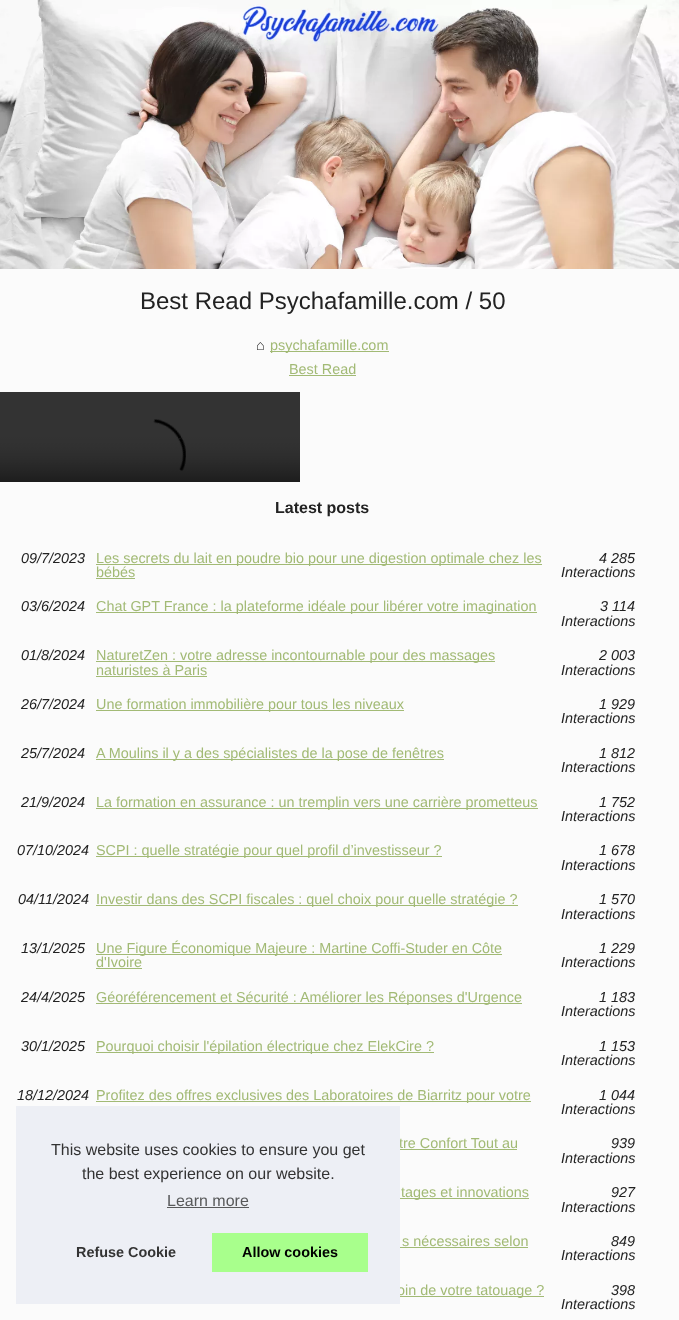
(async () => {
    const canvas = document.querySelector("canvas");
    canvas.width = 679;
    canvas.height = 1320;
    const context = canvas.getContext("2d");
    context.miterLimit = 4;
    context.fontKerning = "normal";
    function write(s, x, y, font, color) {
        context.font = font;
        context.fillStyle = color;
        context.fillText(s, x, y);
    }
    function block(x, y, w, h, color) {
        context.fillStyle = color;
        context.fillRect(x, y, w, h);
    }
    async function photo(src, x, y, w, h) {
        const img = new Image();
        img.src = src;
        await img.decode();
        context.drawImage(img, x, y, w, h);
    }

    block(0, 0, 679, 1320, "rgb(251, 251, 251)");
    await photo("media/1.png", 0, 0, 679, 269);
    write("Best Read Psychafamille.com / 50", 140, 309, "24px Liberation Sans", "rgb(34, 34, 34)");
    write("⌂", 256, 350, "14.4px Liberation Sans", "rgb(34, 34, 34)");
    block(270, 351, 119, 1, "rgb(162, 186, 117)");
    write("psychafamille.com", 270, 350, "14.4px Liberation Sans", "rgb(162, 186, 117)");
    write("Best Read", 289, 374, "14.4px Liberation Sans", "rgb(162, 186, 117)");
    block(289, 375, 67, 1, "rgb(162, 186, 117)");
    await photo("media/2.png", 0, 392, 300, 90);
    write("Latest posts", 275, 513, "bold 16px Liberation Sans", "rgb(34, 34, 34)");
    write("09/7/2023", 21, 563, "italic 14.4px Liberation Sans", "rgb(34, 34, 34)");
    block(96, 564, 446, 1, "rgb(162, 186, 117)");
    write("Les secrets du lait en poudre bio pour une digestion optimale chez les", 96, 563, "14.4px Liberation Sans", "rgb(162, 186, 117)");
    write("bébés", 96, 577, "14.4px Liberation Sans", "rgb(162, 186, 117)");
    block(96, 578, 39, 1, "rgb(162, 186, 117)");
    write("4 285", 599, 563, "italic 14.4px Liberation Sans", "rgb(34, 34, 34)");
    write("Interactions", 561, 577, "italic 14.4px Liberation Sans", "rgb(34, 34, 34)");
    write("03/6/2024", 21, 611, "italic 14.4px Liberation Sans", "rgb(34, 34, 34)");
    block(96, 612, 441, 1, "rgb(162, 186, 117)");
    write("Chat GPT France : la plateforme idéale pour libérer votre imagination", 96, 611, "14.4px Liberation Sans", "rgb(162, 186, 117)");
    write("3 114", 600, 611, "italic 14.4px Liberation Sans", "rgb(34, 34, 34)");
    write("Interactions", 561, 626, "italic 14.4px Liberation Sans", "rgb(34, 34, 34)");
    write("01/8/2024", 21, 660, "italic 14.4px Liberation Sans", "rgb(34, 34, 34)");
    block(96, 661, 399, 1, "rgb(162, 186, 117)");
    write("NaturetZen : votre adresse incontournable pour des massages", 96, 660, "14.4px Liberation Sans", "rgb(162, 186, 117)");
    write("naturistes à Paris", 96, 675, "14.4px Liberation Sans", "rgb(162, 186, 117)");
    block(96, 676, 111, 1, "rgb(162, 186, 117)");
    write("2 003", 599, 660, "italic 14.4px Liberation Sans", "rgb(34, 34, 34)");
    write("Interactions", 561, 675, "italic 14.4px Liberation Sans", "rgb(34, 34, 34)");
    write("26/7/2024", 21, 709, "italic 14.4px Liberation Sans", "rgb(34, 34, 34)");
    block(96, 710, 308, 1, "rgb(162, 186, 117)");
    write("Une formation immobilière pour tous les niveaux", 96, 709, "14.4px Liberation Sans", "rgb(162, 186, 117)");
    write("1 929", 599, 709, "italic 14.4px Liberation Sans", "rgb(34, 34, 34)");
    write("Interactions", 561, 723, "italic 14.4px Liberation Sans", "rgb(34, 34, 34)");
    write("25/7/2024", 21, 758, "italic 14.4px Liberation Sans", "rgb(34, 34, 34)");
    block(96, 759, 348, 1, "rgb(162, 186, 117)");
    write("A Moulins il y a des spécialistes de la pose de fenêtres", 96, 758, "14.4px Liberation Sans", "rgb(162, 186, 117)");
    write("1 812", 599, 758, "italic 14.4px Liberation Sans", "rgb(34, 34, 34)");
    write("Interactions", 561, 772, "italic 14.4px Liberation Sans", "rgb(34, 34, 34)");
    write("21/9/2024", 21, 807, "italic 14.4px Liberation Sans", "rgb(34, 34, 34)");
    block(96, 808, 442, 1, "rgb(162, 186, 117)");
    write("La formation en assurance : un tremplin vers une carrière prometteus", 96, 807, "14.4px Liberation Sans", "rgb(162, 186, 117)");
    write("1 752", 599, 807, "italic 14.4px Liberation Sans", "rgb(34, 34, 34)");
    write("Interactions", 561, 821, "italic 14.4px Liberation Sans", "rgb(34, 34, 34)");
    write("07/10/2024", 17, 855, "italic 14.4px Liberation Sans", "rgb(34, 34, 34)");
    block(96, 856, 346, 1, "rgb(162, 186, 117)");
    write("SCPI : quelle stratégie pour quel profil d’investisseur ?", 96, 855, "14.4px Liberation Sans", "rgb(162, 186, 117)");
    write("1 678", 599, 855, "italic 14.4px Liberation Sans", "rgb(34, 34, 34)");
    write("Interactions", 561, 870, "italic 14.4px Liberation Sans", "rgb(34, 34, 34)");
    write("04/11/2024", 18, 904, "italic 14.4px Liberation Sans", "rgb(34, 34, 34)");
    block(96, 905, 422, 1, "rgb(162, 186, 117)");
    write("Investir dans des SCPI fiscales : quel choix pour quelle stratégie ?", 96, 904, "14.4px Liberation Sans", "rgb(162, 186, 117)");
    write("1 570", 599, 904, "italic 14.4px Liberation Sans", "rgb(34, 34, 34)");
    write("Interactions", 561, 919, "italic 14.4px Liberation Sans", "rgb(34, 34, 34)");
    write("13/1/2025", 21, 953, "italic 14.4px Liberation Sans", "rgb(34, 34, 34)");
    block(96, 954, 406, 1, "rgb(162, 186, 117)");
    write("Une Figure Économique Majeure : Martine Coffi-Studer en Côte", 96, 953, "14.4px Liberation Sans", "rgb(162, 186, 117)");
    write("d'Ivoire", 96, 967, "14.4px Liberation Sans", "rgb(162, 186, 117)");
    block(96, 968, 46, 1, "rgb(162, 186, 117)");
    write("1 229", 599, 953, "italic 14.4px Liberation Sans", "rgb(34, 34, 34)");
    write("Interactions", 561, 967, "italic 14.4px Liberation Sans", "rgb(34, 34, 34)");
    write("24/4/2025", 21, 1002, "italic 14.4px Liberation Sans", "rgb(34, 34, 34)");
    block(96, 1003, 426, 1, "rgb(162, 186, 117)");
    write("Géoréférencement et Sécurité : Améliorer les Réponses d'Urgence", 96, 1002, "14.4px Liberation Sans", "rgb(162, 186, 117)");
    write("1 183", 599, 1002, "italic 14.4px Liberation Sans", "rgb(34, 34, 34)");
    write("Interactions", 561, 1016, "italic 14.4px Liberation Sans", "rgb(34, 34, 34)");
    write("30/1/2025", 21, 1051, "italic 14.4px Liberation Sans", "rgb(34, 34, 34)");
    block(96, 1052, 338, 1, "rgb(162, 186, 117)");
    write("Pourquoi choisir l'épilation électrique chez ElekCire ?", 96, 1051, "14.4px Liberation Sans", "rgb(162, 186, 117)");
    write("1 153", 599, 1051, "italic 14.4px Liberation Sans", "rgb(34, 34, 34)");
    write("Interactions", 561, 1065, "italic 14.4px Liberation Sans", "rgb(34, 34, 34)");
    write("18/12/2024", 17, 1100, "italic 14.4px Liberation Sans", "rgb(34, 34, 34)");
    block(96, 1101, 435, 1, "rgb(162, 186, 117)");
    write("Profitez des offres exclusives des Laboratoires de Biarritz pour votre", 96, 1100, "14.4px Liberation Sans", "rgb(162, 186, 117)");
    write("1 044", 599, 1100, "italic 14.4px Liberation Sans", "rgb(34, 34, 34)");
    write("Interactions", 561, 1114, "italic 14.4px Liberation Sans", "rgb(34, 34, 34)");
    write("tre Confort Tout au", 399, 1148, "14.4px Liberation Sans", "rgb(162, 186, 117)");
    block(400, 1149, 117, 1, "rgb(162, 186, 117)");
    write("939", 611, 1148, "italic 14.4px Liberation Sans", "rgb(34, 34, 34)");
    write("Interactions", 561, 1163, "italic 14.4px Liberation Sans", "rgb(34, 34, 34)");
    block(400, 1198, 129, 1, "rgb(162, 186, 117)");
    write("tages et innovations", 401, 1197, "14.4px Liberation Sans", "rgb(162, 186, 117)");
    write("927", 611, 1197, "italic 14.4px Liberation Sans", "rgb(34, 34, 34)");
    write("Interactions", 561, 1212, "italic 14.4px Liberation Sans", "rgb(34, 34, 34)");
    write("s nécessaires selon", 402, 1246, "14.4px Liberation Sans", "rgb(162, 186, 117)");
    block(400, 1247, 128, 1, "rgb(162, 186, 117)");
    write("849", 611, 1246, "italic 14.4px Liberation Sans", "rgb(34, 34, 34)");
    write("Interactions", 561, 1260, "italic 14.4px Liberation Sans", "rgb(34, 34, 34)");
    block(400, 1296, 144, 1, "rgb(162, 186, 117)");
    write("oin de votre tatouage ?", 397, 1295, "14.4px Liberation Sans", "rgb(162, 186, 117)");
    write("398", 611, 1295, "italic 14.4px Liberation Sans", "rgb(34, 34, 34)");
    write("Interactions", 561, 1309, "italic 14.4px Liberation Sans", "rgb(34, 34, 34)");
    block(16, 1106, 384, 198, "rgb(237, 239, 245)");
    write("This website uses cookies to ensure you get", 51, 1155, "16px Liberation Sans", "rgb(51, 51, 51)");
    write("the best experience on our website.", 82, 1179, "16px Liberation Sans", "rgb(51, 51, 51)");
    write("Learn more", 167, 1206, "16px Liberation Sans", "rgb(88, 89, 90)");
    block(167, 1207, 82, 1, "rgb(88, 89, 90)");
    write("Refuse Cookie", 76, 1257, "bold 14.4px Liberation Sans", "rgb(51, 51, 51)");
    block(212, 1233, 156, 39, "rgb(168, 255, 140)");
    write("Allow cookies", 242, 1257, "bold 14.4px Liberation Sans", "rgb(0, 0, 0)");
})();
